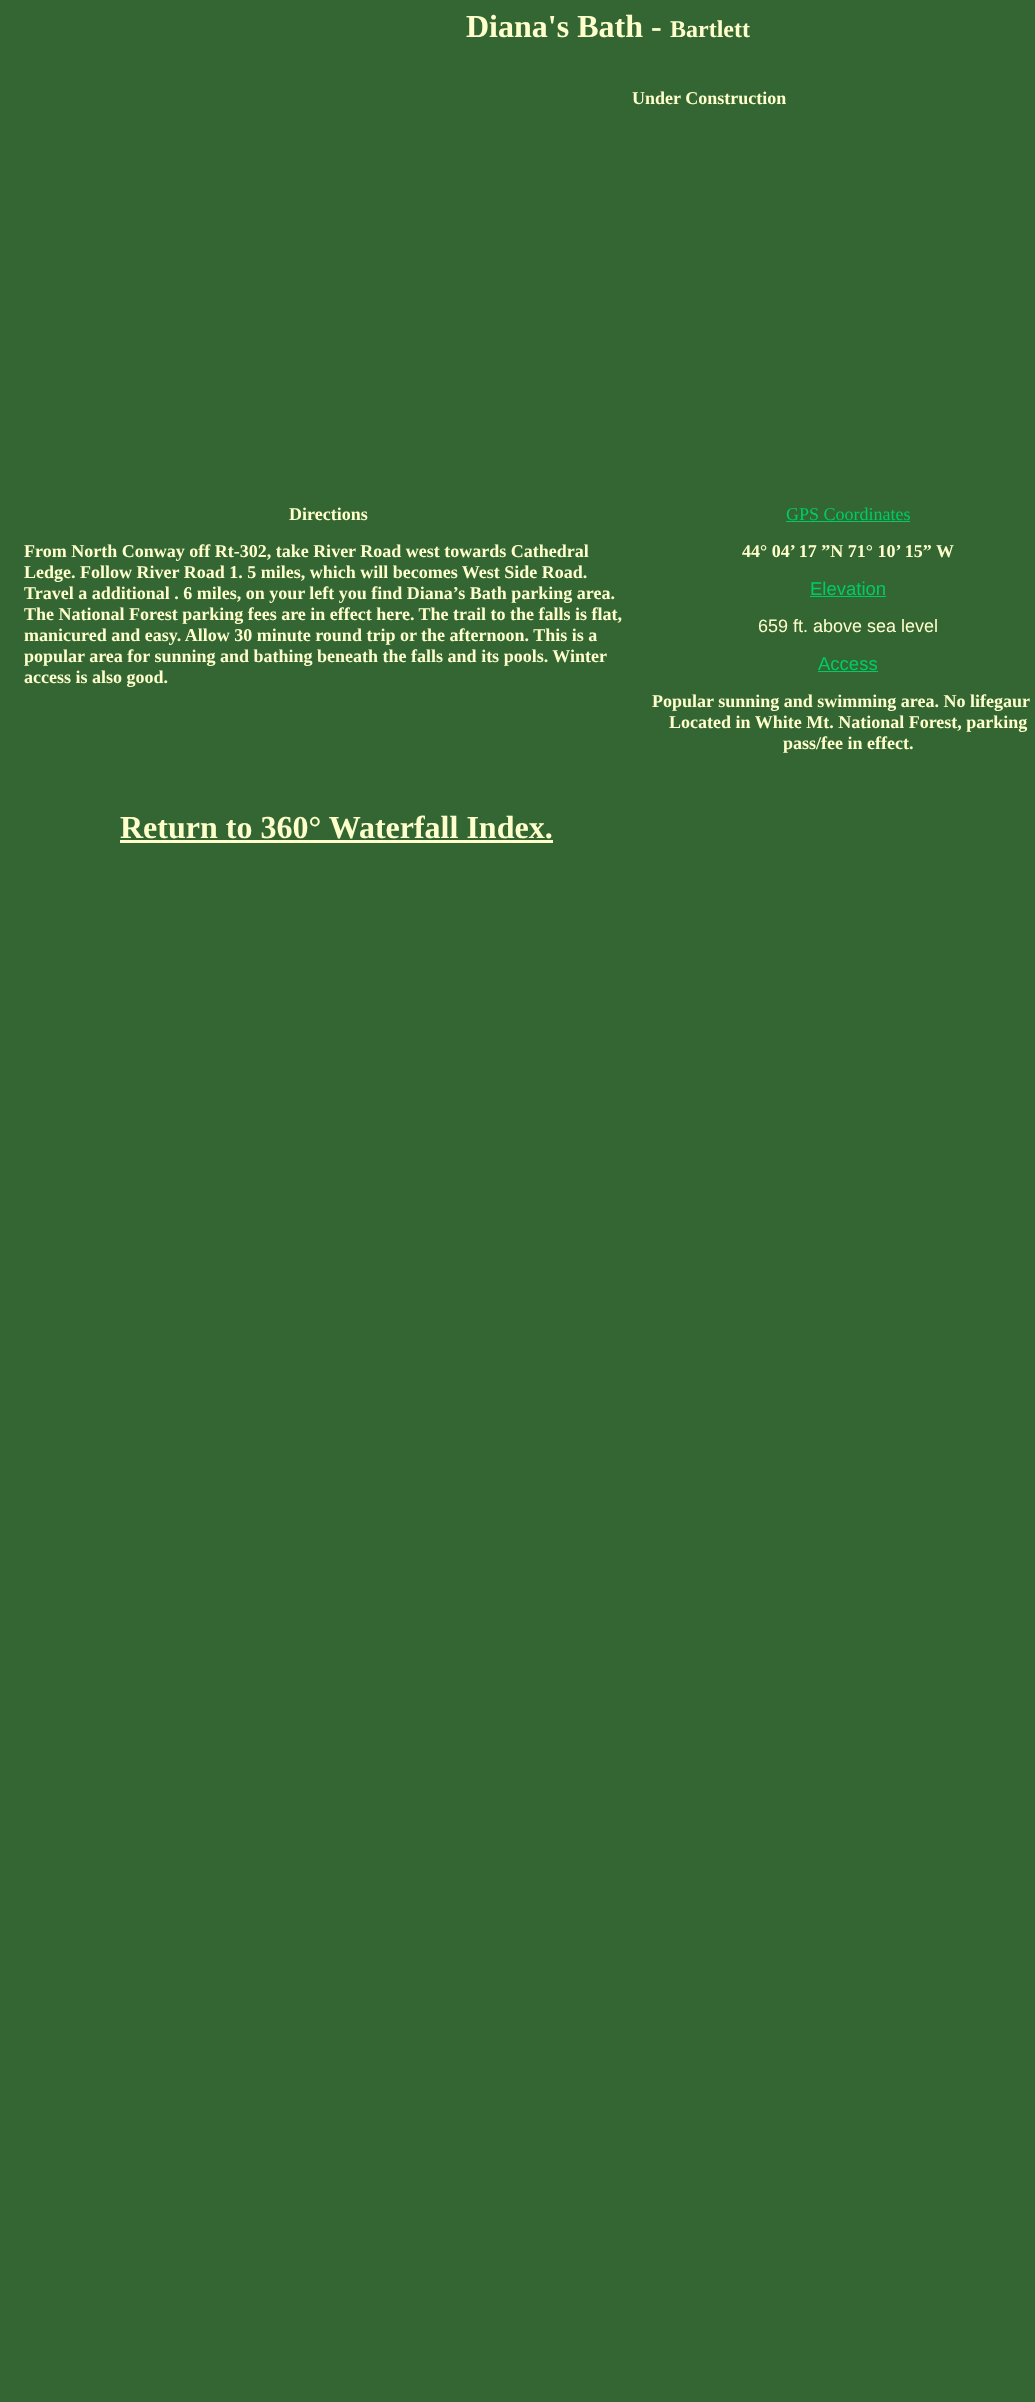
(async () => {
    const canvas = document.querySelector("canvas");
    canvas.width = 1035;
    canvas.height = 2402;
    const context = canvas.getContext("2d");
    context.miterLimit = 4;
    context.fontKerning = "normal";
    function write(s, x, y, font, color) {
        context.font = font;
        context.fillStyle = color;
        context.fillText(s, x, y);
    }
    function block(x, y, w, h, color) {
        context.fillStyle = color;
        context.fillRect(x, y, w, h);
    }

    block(0, 0, 1035, 2402, "rgb(51, 102, 51)");
    write("Diana's Bath -", 466, 37, "bold 32px Liberation Serif", "rgb(255, 255, 204)");
    write("Bartlett", 670, 37, "bold 24px Liberation Serif", "rgb(255, 255, 204)");
    write("Under Construction", 632, 104, "bold 18px Liberation Serif", "rgb(255, 255, 204)");
    write("Directions", 289, 520, "bold 18px Liberation Serif", "rgb(255, 255, 204)");
    write("From North Conway off Rt-302, take River Road west towards Cathedral", 24, 557, "bold 18px Liberation Serif", "rgb(255, 255, 204)");
    write("Ledge. Follow River Road 1. 5 miles, which will becomes West Side Road.", 24, 578, "bold 18px Liberation Serif", "rgb(255, 255, 204)");
    write("Travel a additional . 6 miles, on your left you find Diana’s Bath parking area.", 24, 599, "bold 18px Liberation Serif", "rgb(255, 255, 204)");
    write("The National Forest parking fees are in effect here. The trail to the falls is flat,", 24, 620, "bold 18px Liberation Serif", "rgb(255, 255, 204)");
    write("manicured and easy. Allow 30 minute round trip or the afternoon. This is a", 24, 641, "bold 18px Liberation Serif", "rgb(255, 255, 204)");
    write("popular area for sunning and bathing beneath the falls and its pools. Winter", 24, 662, "bold 18px Liberation Serif", "rgb(255, 255, 204)");
    write("access is also good.", 24, 683, "bold 18px Liberation Serif", "rgb(255, 255, 204)");
    write("GPS Coordinates", 786, 520, "18px Liberation Serif", "rgb(0, 204, 102)");
    block(786, 521, 124, 1, "rgb(0, 204, 102)");
    write("44° 04’ 17 ”N 71° 10’ 15” W", 742, 557, "bold 18px Liberation Serif", "rgb(255, 255, 204)");
    write("Elevation", 810, 595, "18.5px Liberation Sans", "rgb(0, 204, 102)");
    block(810, 596, 76, 1, "rgb(0, 204, 102)");
    write("659 ft. above sea level", 758, 632, "18px Liberation Sans", "rgb(255, 255, 204)");
    write("Access", 818, 670, "18.5px Liberation Sans", "rgb(0, 204, 102)");
    block(818, 671, 60, 1, "rgb(0, 204, 102)");
    write("Popular sunning and swimming area. No lifegaur", 652, 707, "bold 18px Liberation Serif", "rgb(255, 255, 204)");
    write("Located in White Mt. National Forest, parking", 669, 728, "bold 18px Liberation Serif", "rgb(255, 255, 204)");
    write("pass/fee in effect.", 783, 749, "bold 18px Liberation Serif", "rgb(255, 255, 204)");
    write("Return to 360° Waterfall Index.", 120, 838, "bold 32px Liberation Serif", "rgb(255, 255, 204)");
    block(120, 840, 433, 3, "rgb(255, 255, 204)");
})();
